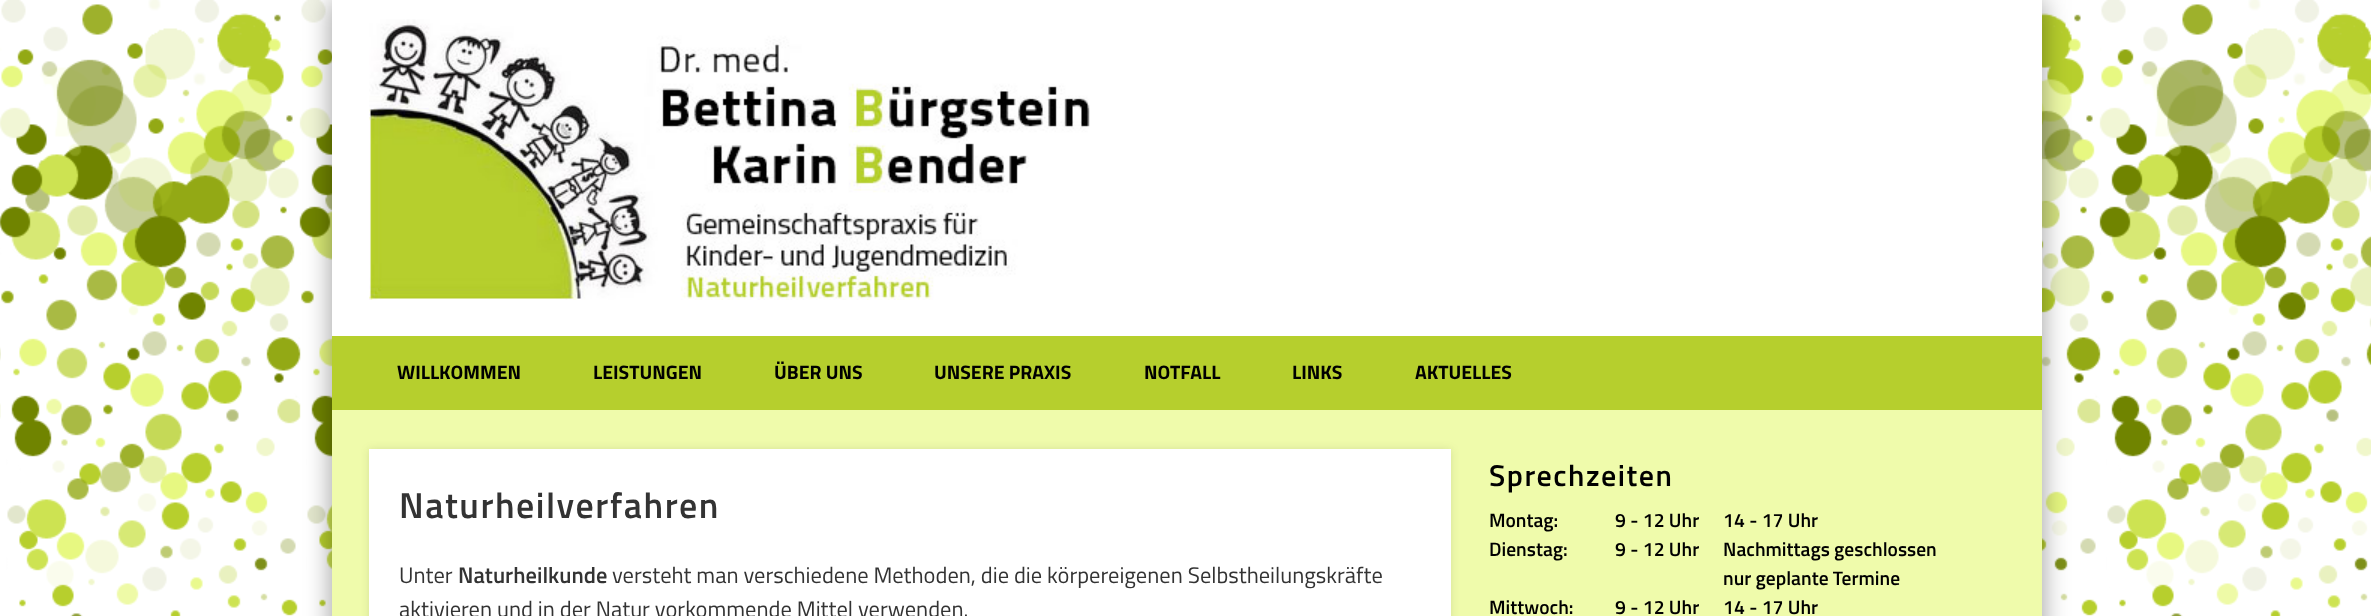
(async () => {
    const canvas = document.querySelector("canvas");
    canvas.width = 2371;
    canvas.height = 616;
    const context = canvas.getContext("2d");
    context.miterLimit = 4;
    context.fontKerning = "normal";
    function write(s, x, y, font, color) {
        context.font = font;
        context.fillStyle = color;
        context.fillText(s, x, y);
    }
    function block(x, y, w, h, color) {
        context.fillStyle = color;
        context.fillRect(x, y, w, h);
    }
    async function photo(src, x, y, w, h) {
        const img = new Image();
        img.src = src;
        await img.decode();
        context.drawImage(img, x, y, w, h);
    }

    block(0, 0, 2371, 616, "rgb(255, 255, 255)");
    await photo("media/1.png", 0, 0, 2371, 616);
    context.fillStyle = "rgba(0, 0, 0, 0.4)";
    context.filter = "blur(13.5px)";
    context.beginPath();
    context.rect(332, 0, 1710, 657);
    context.fill();
    context.filter = "none";
    block(332, 410, 1710, 206, "rgb(239, 251, 171)");
    block(332, 0, 1710, 336, "rgb(255, 255, 255)");
    await photo("media/2.png", 369, 19, 721, 281);
    block(332, 336, 1710, 74, "rgb(182, 207, 45)");
    write("WILLKOMMEN", 397, 379, "bold 19.5px Titillium Web", "rgb(0, 0, 0)");
    write("LEISTUNGEN", 593, 379, "bold 19.5px Titillium Web", "rgb(0, 0, 0)");
    write("ÜBER UNS", 774, 379, "bold 19.5px Titillium Web", "rgb(0, 0, 0)");
    write("UNSERE PRAXIS", 934, 379, "bold 19.5px Titillium Web", "rgb(0, 0, 0)");
    write("NOTFALL", 1144, 379, "bold 19.5px Titillium Web", "rgb(0, 0, 0)");
    write("LINKS", 1292, 379, "bold 19.5px Titillium Web", "rgb(0, 0, 0)");
    write("AKTUELLES", 1415, 379, "bold 19.5px Titillium Web", "rgb(0, 0, 0)");
    context.fillStyle = "rgba(0, 0, 0, 0.1)";
    context.filter = "blur(4px)";
    context.beginPath();
    context.rect(369, 449, 1082, 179);
    context.fill();
    context.filter = "none";
    block(369, 449, 1082, 167, "rgb(255, 255, 255)");
    context.letterSpacing = "1.5px";
    write("Naturheilverfahren", 399, 518, "600 36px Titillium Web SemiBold", "rgb(51, 51, 51)");
    context.letterSpacing = "0px";
    write("Unter", 399, 583, "22.5px Titillium Web", "rgb(51, 51, 51)");
    write("Naturheilkunde", 458, 583, "600 22.5px Titillium Web SemiBold", "rgb(51, 51, 51)");
    write("versteht man verschiedene Methoden, die die körpereigenen Selbstheilungskräfte", 612, 583, "22.5px Titillium Web", "rgb(51, 51, 51)");
    write("aktivieren und in der Natur vorkommende Mittel verwenden.", 399, 617, "22.5px Titillium Web", "rgb(51, 51, 51)");
    context.letterSpacing = "1.5px";
    write("Sprechzeiten", 1489, 486, "600 30px Titillium Web SemiBold", "rgb(0, 0, 0)");
    context.letterSpacing = "0px";
    write("Montag:", 1489, 527, "600 19.5px Titillium Web SemiBold", "rgb(0, 0, 0)");
    write("9 - 12 Uhr", 1615, 527, "600 19.5px Titillium Web SemiBold", "rgb(0, 0, 0)");
    write("14 - 17 Uhr", 1723, 527, "600 19.5px Titillium Web SemiBold", "rgb(0, 0, 0)");
    write("Dienstag:", 1489, 556, "600 19.5px Titillium Web SemiBold", "rgb(0, 0, 0)");
    write("9 - 12 Uhr", 1615, 556, "600 19.5px Titillium Web SemiBold", "rgb(0, 0, 0)");
    write("Nachmittags geschlossen", 1723, 556, "600 19.5px Titillium Web SemiBold", "rgb(0, 0, 0)");
    write("nur geplante Termine", 1723, 585, "600 19.5px Titillium Web SemiBold", "rgb(0, 0, 0)");
    write("Mittwoch:", 1489, 614, "600 19.5px Titillium Web SemiBold", "rgb(0, 0, 0)");
    write("9 - 12 Uhr", 1615, 614, "600 19.5px Titillium Web SemiBold", "rgb(0, 0, 0)");
    write("14 - 17 Uhr", 1723, 614, "600 19.5px Titillium Web SemiBold", "rgb(0, 0, 0)");
})();
